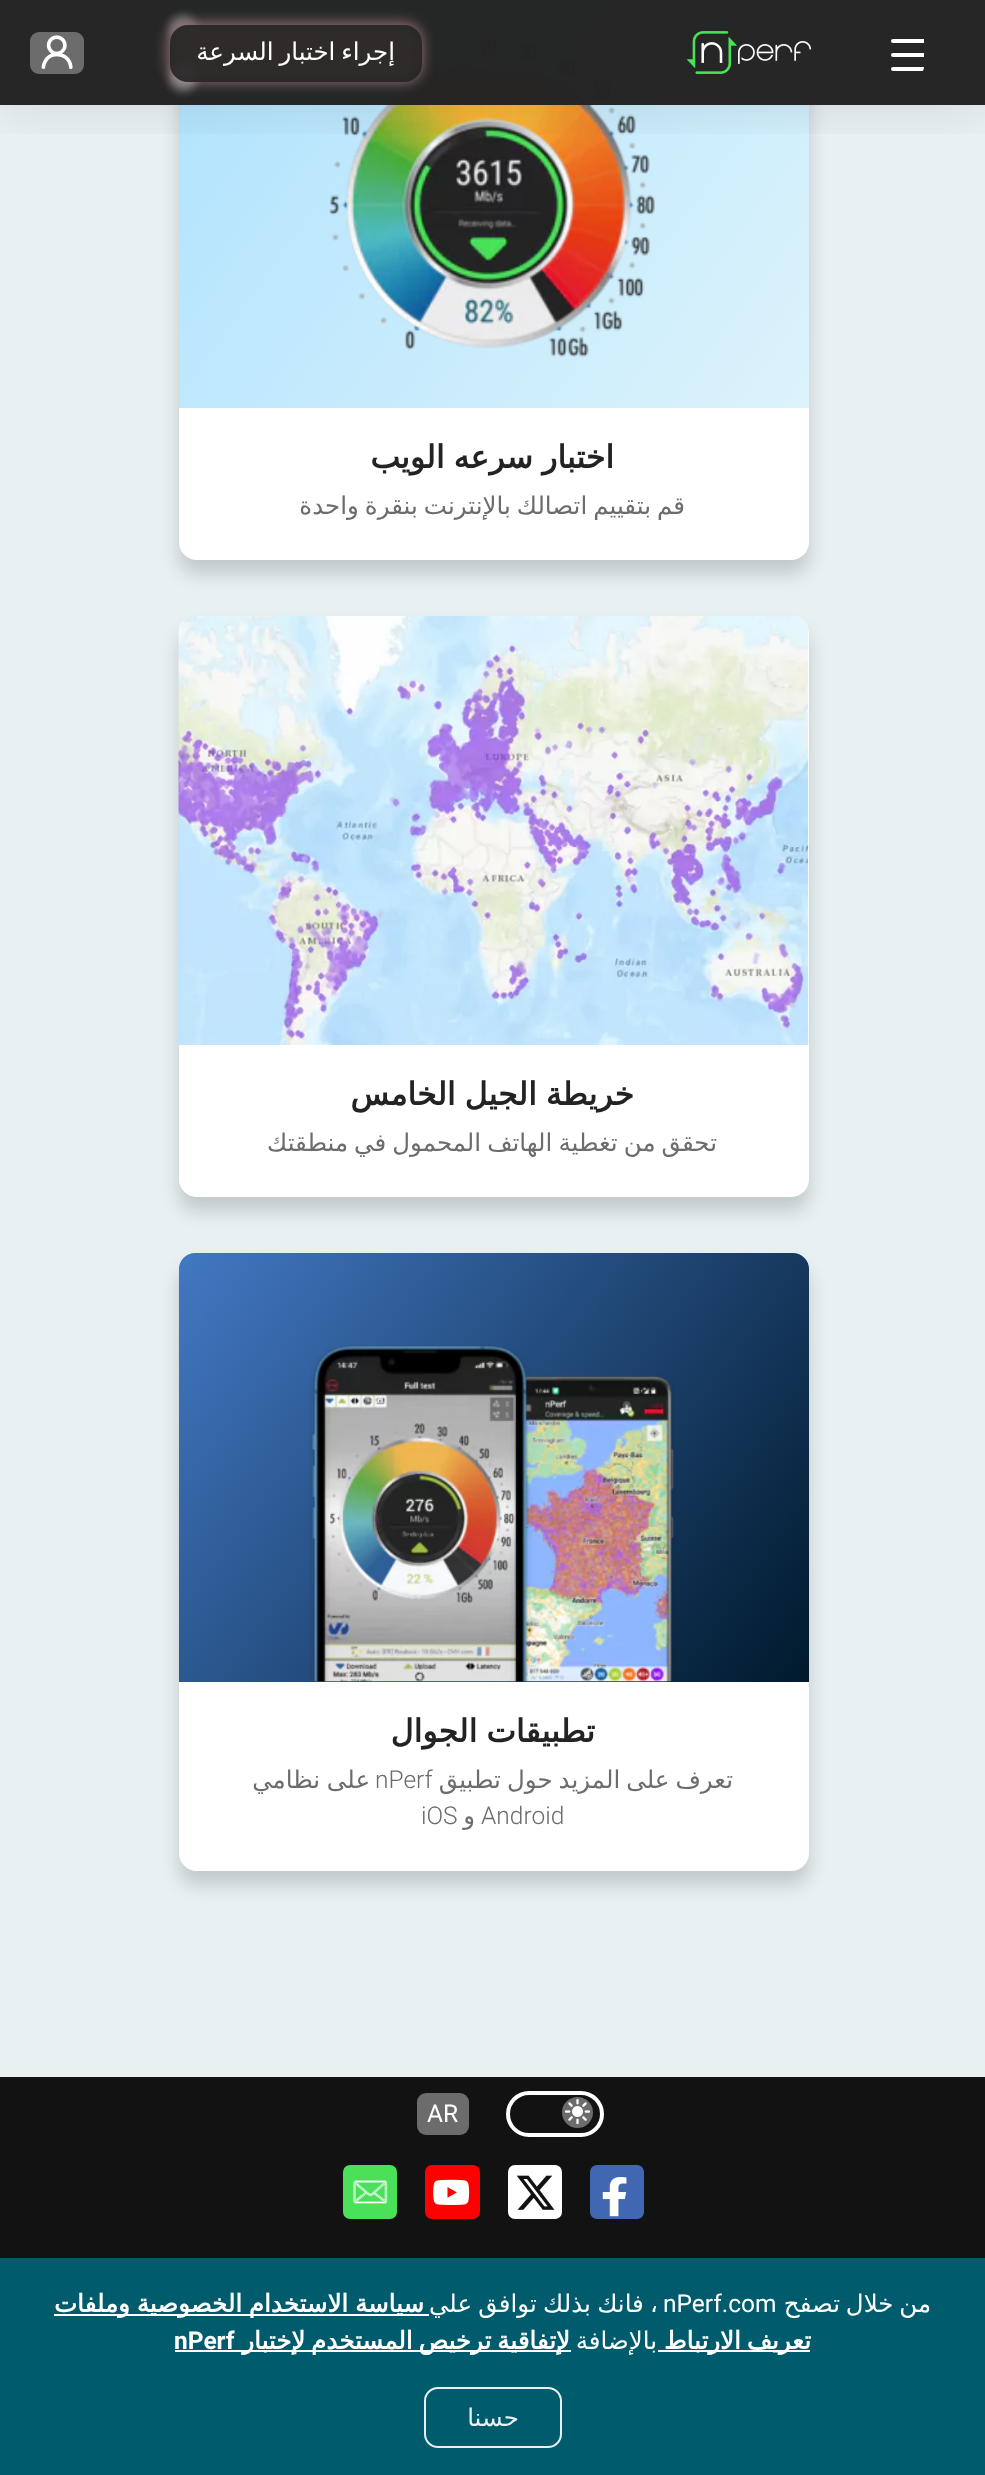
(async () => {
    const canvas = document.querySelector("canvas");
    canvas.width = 985;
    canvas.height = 2475;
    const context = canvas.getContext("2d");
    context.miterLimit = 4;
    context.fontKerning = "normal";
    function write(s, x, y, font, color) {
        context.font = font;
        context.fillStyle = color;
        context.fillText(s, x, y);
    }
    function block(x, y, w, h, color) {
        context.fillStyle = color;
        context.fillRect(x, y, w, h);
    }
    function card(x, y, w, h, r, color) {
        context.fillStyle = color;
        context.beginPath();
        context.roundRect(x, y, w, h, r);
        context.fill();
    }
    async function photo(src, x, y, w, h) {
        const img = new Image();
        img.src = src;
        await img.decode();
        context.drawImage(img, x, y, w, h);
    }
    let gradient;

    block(0, 0, 985, 2475, "rgb(232, 240, 242)");
    context.fillStyle = "rgba(0, 0, 0, 0.16)";
    context.filter = "blur(9px)";
    context.beginPath();
    context.roundRect(179, -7, 630, 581, 18);
    context.fill();
    context.filter = "none";
    card(179, -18, 630, 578, 18, "rgb(255, 255, 255)");
    gradient = context.createLinearGradient(185, -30, 802, 417);
    gradient.addColorStop(0, "rgb(175, 226, 254)");
    gradient.addColorStop(1, "rgb(220, 243, 251)");
    gradient.addColorStop(1, "rgb(220, 246, 255)");
    context.fillStyle = gradient;
    context.fillRect(179, 0, 630, 408);
    await photo("media/3.png", 329, 37, 326, 320);
    block(0, 0, 985, 105, "rgba(35, 35, 35, 0.85)");
    context.save();
    context.beginPath();
    context.rect(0, 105, 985, 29);
    context.clip();
    context.fillStyle = "rgba(35, 35, 35, 0.1)";
    context.filter = "blur(26px)";
    context.beginPath();
    context.rect(0, 7, 985, 105);
    context.fill();
    context.filter = "none";
    context.restore();
    block(0, 0, 985, 105, "rgba(35, 35, 35, 0.9)");
    context.fillStyle = "rgb(255, 255, 255)";
    context.beginPath();
    context.roundRect(891, 53, 33, 4, [2, 0, 0, 2]);
    context.fill();
    context.beginPath();
    context.roundRect(891, 39, 33, 4, [2, 0, 0, 2]);
    context.fill();
    context.save();
    context.beginPath();
    context.roundRect(882, 32, 42, 42, 7);
    context.clip();
    context.beginPath();
    context.roundRect(891, 67, 33, 4, [2, 0, 0, 2]);
    context.fill();
    context.restore();
    await photo("media/1.png", 686, 31, 126, 43);
    context.fillStyle = "rgba(255, 255, 255, 0.2)";
    context.filter = "blur(5px)";
    context.beginPath();
    context.roundRect(170, 16, 26, 26, 13);
    context.fill();
    context.filter = "none";
    context.filter = "blur(5px)";
    context.beginPath();
    context.roundRect(170, 16, 26, 26, 13);
    context.fill();
    context.filter = "none";
    context.fillStyle = "rgb(152, 115, 115)";
    context.filter = "blur(7px)";
    context.beginPath();
    context.roundRect(168, 23, 254, 59, 18);
    context.fill();
    context.filter = "none";
    context.fillStyle = "rgba(255, 255, 255, 0.2)";
    context.filter = "blur(5px)";
    context.beginPath();
    context.roundRect(170, 65, 26, 26, 13);
    context.fill();
    context.filter = "none";
    context.filter = "blur(5px)";
    context.beginPath();
    context.roundRect(170, 65, 26, 26, 13);
    context.fill();
    context.filter = "none";
    card(170, 25, 252, 57, 18, "rgba(35, 35, 35, 0.9)");
    context.wordSpacing = "-2px";
    context.direction = "rtl";
    write("إجراء اختبار السرعة", 395, 60, "24.5px DejaVu Sans", "rgb(255, 255, 255)");
    card(30, 32, 54, 42, 9, "rgb(108, 108, 108)");
    await photo("media/2.png", 41, 35, 32, 34);
    context.wordSpacing = "-1px";
    write("اختبار سرعه الويب", 614, 468, "bold 31.5px DejaVu Sans", "rgb(35, 35, 35)");
    context.wordSpacing = "-1.75px";
    write("قم بتقييم اتصالك بالإنترنت بنقرة واحدة", 685, 514, "24.5px DejaVu Sans", "rgb(108, 108, 108)");
    context.fillStyle = "rgba(0, 0, 0, 0.16)";
    context.filter = "blur(9px)";
    context.beginPath();
    context.roundRect(179, 630, 630, 581, 18);
    context.fill();
    context.filter = "none";
    card(179, 616, 630, 581, 18, "rgb(255, 255, 255)");
    await photo("media/4.png", 178, 616, 631, 429);
    context.wordSpacing = "-1px";
    write("خريطة الجيل الخامس", 634, 1105, "bold 31.5px DejaVu Sans", "rgb(35, 35, 35)");
    context.wordSpacing = "-1.75px";
    write("تحقق من تغطية الهاتف المحمول في منطقتك", 717, 1151, "24.5px DejaVu Sans", "rgb(108, 108, 108)");
    context.fillStyle = "rgba(0, 0, 0, 0.16)";
    context.filter = "blur(9px)";
    context.beginPath();
    context.roundRect(179, 1267, 630, 618, 18);
    context.fill();
    context.filter = "none";
    card(179, 1253, 630, 618, 18, "rgb(255, 255, 255)");
    gradient = context.createLinearGradient(185, 1244, 802, 1691);
    gradient.addColorStop(0, "rgb(66, 120, 195)");
    gradient.addColorStop(1, "rgb(0, 25, 44)");
    context.fillStyle = gradient;
    context.beginPath();
    context.roundRect(179, 1253, 630, 429, [16, 16, 0, 0]);
    context.fill();
    await photo("media/5.png", 309, 1345, 366, 337);
    context.wordSpacing = "-1px";
    write("تطبيقات الجوال", 595, 1742, "bold 31.5px DejaVu Sans", "rgb(35, 35, 35)");
    context.wordSpacing = "-1.75px";
    write("تعرف على المزيد حول تطبيق", 733, 1788, "24.5px DejaVu Sans", "rgb(108, 108, 108)");
    context.wordSpacing = "0px";
    context.direction = "ltr";
    write("nPerf", 375, 1788, "300 24.5px Roboto", "rgb(108, 108, 108)");
    context.wordSpacing = "-1px";
    context.direction = "rtl";
    write("على نظامي", 370, 1788, "24.5px DejaVu Sans", "rgb(108, 108, 108)");
    context.wordSpacing = "0px";
    context.direction = "ltr";
    write("Android", 481, 1824, "300 24.5px Roboto", "rgb(108, 108, 108)");
    context.direction = "rtl";
    write("و", 475, 1824, "24.5px DejaVu Sans", "rgb(108, 108, 108)");
    context.direction = "ltr";
    write("iOS", 421, 1824, "300 24.5px Roboto", "rgb(108, 108, 108)");
    block(0, 2077, 985, 181, "rgb(18, 18, 18)");
    context.beginPath();
    context.roundRect(508, 2093, 94, 42, 21);
    context.strokeStyle = "rgb(255, 255, 255)";
    context.lineWidth = 4;
    context.stroke();
    context.fillStyle = "rgb(108, 108, 108)";
    context.beginPath();
    context.arc(577.5, 2112.5, 15.5, 0, Math.PI * 2);
    context.fill();
    await photo("media/6.png", 564, 2099, 27, 26);
    card(417, 2093, 52, 42, 9, "rgb(108, 108, 108)");
    write("AR", 427, 2122, "24.5px Roboto", "rgb(255, 255, 255)");
    card(590, 2165, 54, 54, 7, "rgb(66, 103, 178)");
    await photo("media/7.png", 602, 2177, 25, 40);
    card(508, 2165, 54, 54, 7, "rgb(255, 255, 255)");
    await photo("media/8.png", 516, 2175, 39, 35);
    card(425, 2165, 55, 54, 7, "rgb(255, 0, 0)");
    await photo("media/9.png", 433, 2179, 37, 26);
    card(343, 2165, 54, 54, 7, "rgb(74, 224, 89)");
    await photo("media/10.png", 353, 2180, 35, 24);
    block(0, 2258, 985, 217, "rgb(0, 92, 109)");
    context.wordSpacing = "-2px";
    context.direction = "rtl";
    write("من خلال تصفح", 931, 2312, "24.5px DejaVu Sans", "rgb(255, 255, 255)");
    context.wordSpacing = "0px";
    context.direction = "ltr";
    write("nPerf.com", 663, 2312, "24.5px Roboto", "rgb(255, 255, 255)");
    context.wordSpacing = "-1.5px";
    context.direction = "rtl";
    write("، فانك بذلك توافق علي", 658, 2312, "24.5px DejaVu Sans", "rgb(255, 255, 255)");
    block(54, 2314, 375, 2, "rgb(255, 255, 255)");
    context.wordSpacing = "-1px";
    write("سياسة الاستخدام الخصوصية وملفات", 424, 2312, "bold 24.5px DejaVu Sans", "rgb(255, 255, 255)");
    block(658, 2350, 152, 2, "rgb(255, 255, 255)");
    context.wordSpacing = "-2px";
    write("تعريف الارتباط", 811, 2349, "bold 24.5px DejaVu Sans", "rgb(255, 255, 255)");
    context.wordSpacing = "0px";
    write("بالإضافة", 657, 2349, "24.5px DejaVu Sans", "rgb(255, 255, 255)");
    block(175, 2350, 396, 2, "rgb(255, 255, 255)");
    context.wordSpacing = "-2px";
    write("لإتفاقية ترخيص المستخدم لإختبار", 570, 2349, "bold 24.5px DejaVu Sans", "rgb(255, 255, 255)");
    context.wordSpacing = "0px";
    context.direction = "ltr";
    write("nPerf", 174, 2349, "bold 24.5px Roboto", "rgb(255, 255, 255)");
    context.beginPath();
    context.roundRect(425, 2388, 136, 59, 13);
    context.strokeStyle = "rgb(232, 240, 242)";
    context.lineWidth = 2;
    context.stroke();
    context.direction = "rtl";
    write("حسنا", 519, 2426, "24.5px DejaVu Sans", "rgb(232, 240, 242)");
})();
